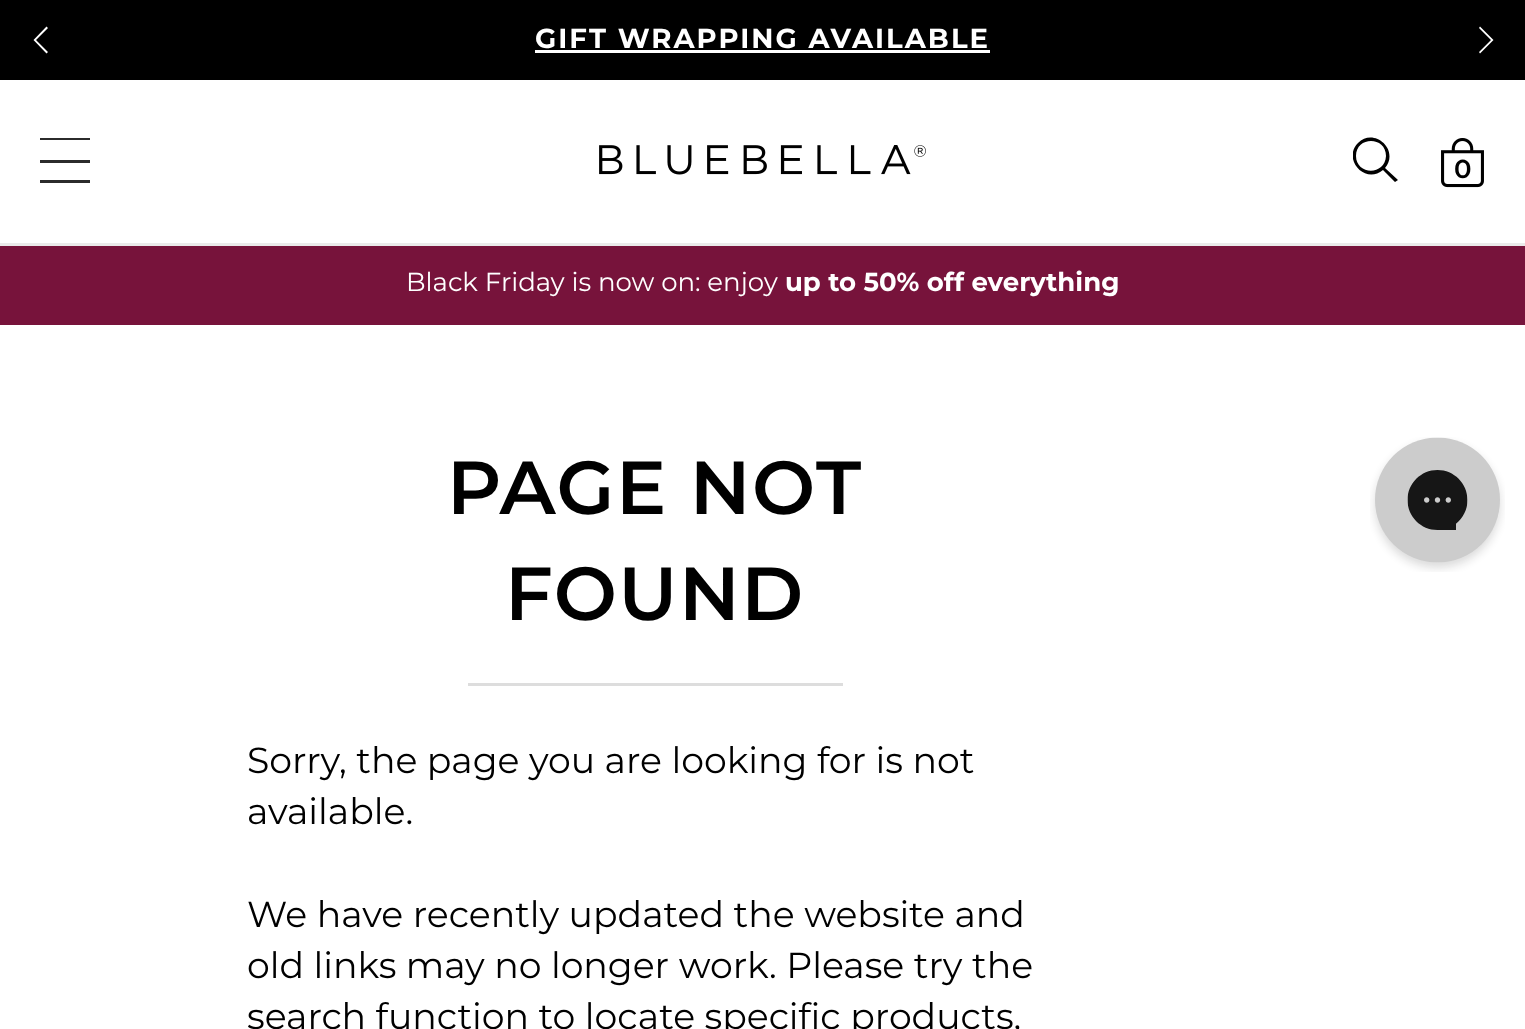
(async () => {
    const canvas = document.querySelector("canvas");
    canvas.width = 1525;
    canvas.height = 1029;
    const context = canvas.getContext("2d");
    context.miterLimit = 4;
    context.fontKerning = "normal";
    function write(s, x, y, font, color) {
        context.font = font;
        context.fillStyle = color;
        context.fillText(s, x, y);
    }
    function block(x, y, w, h, color) {
        context.fillStyle = color;
        context.fillRect(x, y, w, h);
    }
    async function photo(src, x, y, w, h) {
        const img = new Image();
        img.src = src;
        await img.decode();
        context.drawImage(img, x, y, w, h);
    }

    block(0, 0, 1525, 1029, "rgb(255, 255, 255)");
    block(0, 0, 1525, 80, "rgb(0, 0, 0)");
    context.fillStyle = "rgb(255, 255, 255)";
    context.beginPath();
    context.moveTo(46.5, 26.5);
    context.lineTo(33.5, 40);
    context.lineTo(46.5, 53.5);
    context.lineTo(48, 52);
    context.lineTo(36, 40);
    context.lineTo(48, 28);
    context.closePath();
    context.fill("evenodd");
    context.letterSpacing = "2px";
    write("GIFT WRAPPING AVAILABLE", 535, 48, "bold 27.5px Montserrat", "rgb(255, 255, 255)");
    block(535, 50, 455, 3, "rgb(255, 255, 255)");
    context.beginPath();
    context.moveTo(1480, 53.5);
    context.lineTo(1493.5, 40);
    context.lineTo(1480, 26.5);
    context.lineTo(1479, 28);
    context.lineTo(1491, 40);
    context.lineTo(1479, 52);
    context.closePath();
    context.fill("evenodd");
    block(0, 243, 1525, 3, "rgb(234, 234, 234)");
    block(40, 138, 50, 2, "rgb(43, 43, 43)");
    block(40, 160, 50, 3, "rgb(43, 43, 43)");
    block(40, 180, 50, 3, "rgb(43, 43, 43)");
    await photo("media/1.png", 599, 145, 327, 30);
    context.save();
    context.beginPath();
    context.rect(1353, 135, 45, 50);
    context.clip();
    context.fillStyle = "rgb(0, 0, 0)";
    context.beginPath();
    context.moveTo(1398, 180);
    context.lineTo(1385, 168);
    context.bezierCurveTo(1400, 150, 1374, 127, 1358, 143);
    context.bezierCurveTo(1342, 159, 1365, 185, 1383, 170);
    context.lineTo(1395, 182);
    context.closePath();
    context.moveTo(1356, 156);
    context.bezierCurveTo(1356, 136, 1386, 136, 1386, 156);
    context.bezierCurveTo(1385, 176, 1356, 175, 1356, 156);
    context.closePath();
    context.fill();
    context.restore();
    await photo("media/2.png", 1441, 138, 43, 50);
    context.letterSpacing = "0px";
    write("0", 1454, 178, "600 26px Montserrat", "rgb(0, 0, 0)");
    block(0, 246, 1525, 79, "rgb(119, 19, 59)");
    write("Black Friday is now on: enjoy", 406, 291, "26px Montserrat", "rgb(255, 255, 255)");
    write("up to 50% off everything", 785, 291, "bold 26px Montserrat", "rgb(255, 255, 255)");
    context.letterSpacing = "1.5px";
    write("PAGE NOT", 447, 514, "600 75px Montserrat", "rgb(0, 0, 0)");
    write("FOUND", 505, 620, "600 75px Montserrat", "rgb(0, 0, 0)");
    block(468, 683, 375, 3, "rgb(221, 221, 221)");
    context.letterSpacing = "0px";
    write("Sorry, the page you are looking for is not", 247, 773, "36.25px Montserrat", "rgb(0, 0, 0)");
    write("available.", 247, 824, "36.25px Montserrat", "rgb(0, 0, 0)");
    write("We have recently updated the website and", 247, 927, "36.25px Montserrat", "rgb(0, 0, 0)");
    write("old links may no longer work. Please try the", 247, 978, "36.25px Montserrat", "rgb(0, 0, 0)");
    write("search function to locate specific products,", 247, 1029, "36.25px Montserrat", "rgb(0, 0, 0)");
    await photo("media/3.png", 1370, 437, 135, 135);
})();
